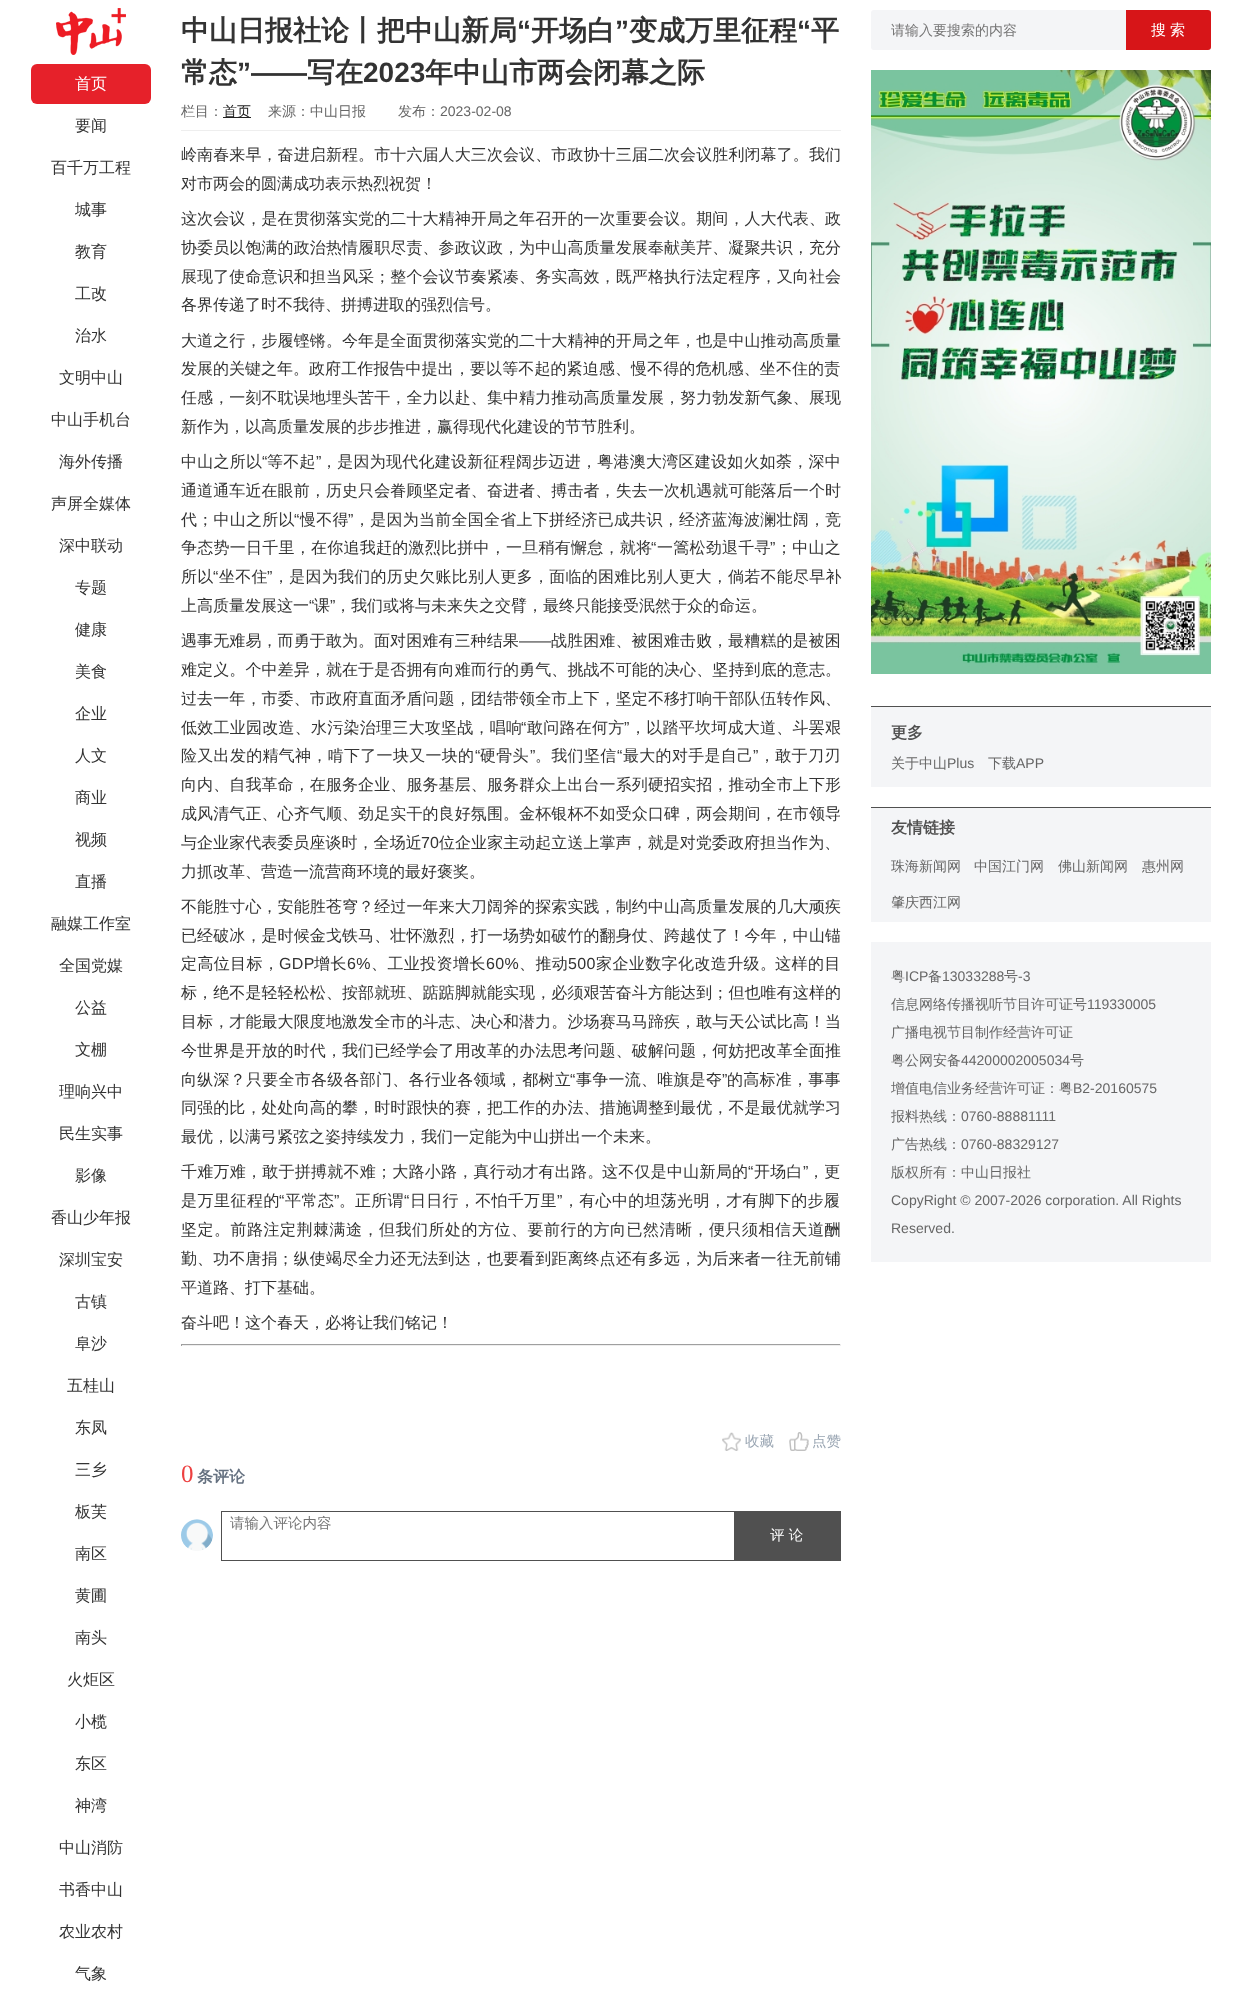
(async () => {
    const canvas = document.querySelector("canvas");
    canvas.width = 1241;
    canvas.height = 1999;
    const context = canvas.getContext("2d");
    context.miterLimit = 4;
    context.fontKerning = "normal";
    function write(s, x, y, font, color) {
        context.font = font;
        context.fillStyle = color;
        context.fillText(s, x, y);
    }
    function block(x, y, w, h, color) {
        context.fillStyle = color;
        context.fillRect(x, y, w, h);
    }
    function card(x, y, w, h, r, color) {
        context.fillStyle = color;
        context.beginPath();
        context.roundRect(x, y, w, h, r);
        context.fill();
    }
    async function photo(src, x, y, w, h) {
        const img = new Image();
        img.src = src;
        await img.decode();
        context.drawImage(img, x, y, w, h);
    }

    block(0, 0, 1241, 1999, "rgb(255, 255, 255)");
    await photo("media/1.png", 56, 8, 70, 47);
    card(31, 64, 120, 40, 6, "rgb(230, 33, 42)");
    write("首页", 75, 89, "500 16px WenQuanYi Zen Hei", "rgb(255, 255, 255)");
    write("要闻", 75, 131, "500 16px WenQuanYi Zen Hei", "rgb(51, 51, 51)");
    write("百千万工程", 51, 173, "500 16px WenQuanYi Zen Hei", "rgb(51, 51, 51)");
    write("城事", 75, 215, "500 16px WenQuanYi Zen Hei", "rgb(51, 51, 51)");
    write("教育", 75, 257, "500 16px WenQuanYi Zen Hei", "rgb(51, 51, 51)");
    write("工改", 75, 299, "500 16px WenQuanYi Zen Hei", "rgb(51, 51, 51)");
    write("治水", 75, 341, "500 16px WenQuanYi Zen Hei", "rgb(51, 51, 51)");
    write("文明中山", 59, 383, "500 16px WenQuanYi Zen Hei", "rgb(51, 51, 51)");
    write("中山手机台", 51, 425, "500 16px WenQuanYi Zen Hei", "rgb(51, 51, 51)");
    write("海外传播", 59, 467, "500 16px WenQuanYi Zen Hei", "rgb(51, 51, 51)");
    write("声屏全媒体", 51, 509, "500 16px WenQuanYi Zen Hei", "rgb(51, 51, 51)");
    write("深中联动", 59, 551, "500 16px WenQuanYi Zen Hei", "rgb(51, 51, 51)");
    write("专题", 75, 593, "500 16px WenQuanYi Zen Hei", "rgb(51, 51, 51)");
    write("健康", 75, 635, "500 16px WenQuanYi Zen Hei", "rgb(51, 51, 51)");
    write("美食", 75, 677, "500 16px WenQuanYi Zen Hei", "rgb(51, 51, 51)");
    write("企业", 75, 719, "500 16px WenQuanYi Zen Hei", "rgb(51, 51, 51)");
    write("人文", 75, 761, "500 16px WenQuanYi Zen Hei", "rgb(51, 51, 51)");
    write("商业", 75, 803, "500 16px WenQuanYi Zen Hei", "rgb(51, 51, 51)");
    write("视频", 75, 845, "500 16px WenQuanYi Zen Hei", "rgb(51, 51, 51)");
    write("直播", 75, 887, "500 16px WenQuanYi Zen Hei", "rgb(51, 51, 51)");
    write("融媒工作室", 51, 929, "500 16px WenQuanYi Zen Hei", "rgb(51, 51, 51)");
    write("全国党媒", 59, 971, "500 16px WenQuanYi Zen Hei", "rgb(51, 51, 51)");
    write("公益", 75, 1013, "500 16px WenQuanYi Zen Hei", "rgb(51, 51, 51)");
    write("文棚", 75, 1055, "500 16px WenQuanYi Zen Hei", "rgb(51, 51, 51)");
    write("理响兴中", 59, 1097, "500 16px WenQuanYi Zen Hei", "rgb(51, 51, 51)");
    write("民生实事", 59, 1139, "500 16px WenQuanYi Zen Hei", "rgb(51, 51, 51)");
    write("影像", 75, 1181, "500 16px WenQuanYi Zen Hei", "rgb(51, 51, 51)");
    write("香山少年报", 51, 1223, "500 16px WenQuanYi Zen Hei", "rgb(51, 51, 51)");
    write("深圳宝安", 59, 1265, "500 16px WenQuanYi Zen Hei", "rgb(51, 51, 51)");
    write("古镇", 75, 1307, "500 16px WenQuanYi Zen Hei", "rgb(51, 51, 51)");
    write("阜沙", 75, 1349, "500 16px WenQuanYi Zen Hei", "rgb(51, 51, 51)");
    write("五桂山", 67, 1391, "500 16px WenQuanYi Zen Hei", "rgb(51, 51, 51)");
    write("东凤", 75, 1433, "500 16px WenQuanYi Zen Hei", "rgb(51, 51, 51)");
    write("三乡", 75, 1475, "500 16px WenQuanYi Zen Hei", "rgb(51, 51, 51)");
    write("板芙", 75, 1517, "500 16px WenQuanYi Zen Hei", "rgb(51, 51, 51)");
    write("南区", 75, 1559, "500 16px WenQuanYi Zen Hei", "rgb(51, 51, 51)");
    write("黄圃", 75, 1601, "500 16px WenQuanYi Zen Hei", "rgb(51, 51, 51)");
    write("南头", 75, 1643, "500 16px WenQuanYi Zen Hei", "rgb(51, 51, 51)");
    write("火炬区", 67, 1685, "500 16px WenQuanYi Zen Hei", "rgb(51, 51, 51)");
    write("小榄", 75, 1727, "500 16px WenQuanYi Zen Hei", "rgb(51, 51, 51)");
    write("东区", 75, 1769, "500 16px WenQuanYi Zen Hei", "rgb(51, 51, 51)");
    write("神湾", 75, 1811, "500 16px WenQuanYi Zen Hei", "rgb(51, 51, 51)");
    write("中山消防", 59, 1853, "500 16px WenQuanYi Zen Hei", "rgb(51, 51, 51)");
    write("书香中山", 59, 1895, "500 16px WenQuanYi Zen Hei", "rgb(51, 51, 51)");
    write("农业农村", 59, 1937, "500 16px WenQuanYi Zen Hei", "rgb(51, 51, 51)");
    write("气象", 75, 1979, "500 16px WenQuanYi Zen Hei", "rgb(51, 51, 51)");
    write("中山日报社论丨把中山新局", 181, 40, "bold 28px WenQuanYi Zen Hei", "rgb(51, 51, 51)");
    write("“", 517, 40, "bold 28px Liberation Sans", "rgb(51, 51, 51)");
    write("开场白", 531, 40, "bold 28px WenQuanYi Zen Hei", "rgb(51, 51, 51)");
    write("”", 615, 40, "bold 28px Liberation Sans", "rgb(51, 51, 51)");
    write("变成万里征程", 629, 40, "bold 28px WenQuanYi Zen Hei", "rgb(51, 51, 51)");
    write("“", 797, 40, "bold 28px Liberation Sans", "rgb(51, 51, 51)");
    write("平", 811, 40, "bold 28px WenQuanYi Zen Hei", "rgb(51, 51, 51)");
    write("常态", 181, 82, "bold 28px WenQuanYi Zen Hei", "rgb(51, 51, 51)");
    write("”——", 237, 82, "bold 28px Liberation Sans", "rgb(51, 51, 51)");
    write("写在", 307, 82, "bold 28px WenQuanYi Zen Hei", "rgb(51, 51, 51)");
    write("2023", 363, 82, "bold 28px Liberation Sans", "rgb(51, 51, 51)");
    write("年中山市两会闭幕之际", 425, 82, "bold 28px WenQuanYi Zen Hei", "rgb(51, 51, 51)");
    block(181, 130, 660, 1, "rgb(238, 238, 238)");
    write("栏目：", 181, 116, "500 14px WenQuanYi Zen Hei", "rgb(102, 102, 102)");
    block(223, 117, 28, 1, "rgb(34, 34, 34)");
    write("首页", 223, 116, "500 14px WenQuanYi Zen Hei", "rgb(34, 34, 34)");
    write("来源：中山日报", 268, 116, "500 14px WenQuanYi Zen Hei", "rgb(102, 102, 102)");
    write("发布：", 398, 116, "500 14px WenQuanYi Zen Hei", "rgb(102, 102, 102)");
    write("2023-02-08", 440, 116, "14px Liberation Sans", "rgb(102, 102, 102)");
    context.letterSpacing = "0.1px";
    write("岭南春来早，奋进启新程。市十六届人大三次会议、市政协十三届二次会议胜利闭幕了。我们", 181, 160, "500 16px WenQuanYi Zen Hei", "rgb(51, 51, 51)");
    context.letterSpacing = "0px";
    write("对市两会的圆满成功表示热烈祝贺！", 181, 189, "500 16px WenQuanYi Zen Hei", "rgb(51, 51, 51)");
    context.letterSpacing = "0.1px";
    write("这次会议，是在贯彻落实党的二十大精神开局之年召开的一次重要会议。期间，人大代表、政", 181, 224, "500 16px WenQuanYi Zen Hei", "rgb(51, 51, 51)");
    write("协委员以饱满的政治热情履职尽责、参政议政，为中山高质量发展奉献美芹、凝聚共识，充分", 181, 253, "500 16px WenQuanYi Zen Hei", "rgb(51, 51, 51)");
    write("展现了使命意识和担当风采；整个会议节奏紧凑、务实高效，既严格执行法定程序，又向社会", 181, 282, "500 16px WenQuanYi Zen Hei", "rgb(51, 51, 51)");
    context.letterSpacing = "0px";
    write("各界传递了时不我待、拼搏进取的强烈信号。", 181, 310, "500 16px WenQuanYi Zen Hei", "rgb(51, 51, 51)");
    context.letterSpacing = "0.1px";
    write("大道之行，步履铿锵。今年是全面贯彻落实党的二十大精神的开局之年，也是中山推动高质量", 181, 346, "500 16px WenQuanYi Zen Hei", "rgb(51, 51, 51)");
    context.letterSpacing = "0px";
    write("发展的关键之年。", 181, 374, "500 16px WenQuanYi Zen Hei", "rgb(51, 51, 51)");
    context.letterSpacing = "0.1px";
    write("政府工作报告中提出，要以等不起的紧迫感、慢不得的危机感、坐不住的责", 309, 374, "500 16px WenQuanYi Zen Hei", "rgb(51, 51, 51)");
    write("任感，一刻不耽误地埋头苦干，全力以赴、集中精力推动高质量发展，努力勃发新气象、展现", 181, 403, "500 16px WenQuanYi Zen Hei", "rgb(51, 51, 51)");
    context.letterSpacing = "0px";
    write("新作为，以高质量发展的步步推进，赢得现代化建设的节节胜利。", 181, 432, "500 16px WenQuanYi Zen Hei", "rgb(51, 51, 51)");
    context.letterSpacing = "0.25px";
    write("中山之所以", 181, 467, "500 16px WenQuanYi Zen Hei", "rgb(51, 51, 51)");
    write("“", 262, 467, "16px Liberation Sans", "rgb(51, 51, 51)");
    write("等不起", 267, 467, "500 16px WenQuanYi Zen Hei", "rgb(51, 51, 51)");
    write("”", 316, 467, "16px Liberation Sans", "rgb(51, 51, 51)");
    write("，是因为现代化建设新征程阔步迈进，粤港澳大湾区建设如火如荼，深中", 321, 467, "500 16px WenQuanYi Zen Hei", "rgb(51, 51, 51)");
    context.letterSpacing = "0.1px";
    write("通道通车近在眼前，历史只会眷顾坚定者、奋进者、搏击者，失去一次机遇就可能落后一个时", 181, 496, "500 16px WenQuanYi Zen Hei", "rgb(51, 51, 51)");
    context.letterSpacing = "0.25px";
    write("代；中山之所以", 181, 525, "500 16px WenQuanYi Zen Hei", "rgb(51, 51, 51)");
    write("“", 294, 525, "16px Liberation Sans", "rgb(51, 51, 51)");
    write("慢不得", 300, 525, "500 16px WenQuanYi Zen Hei", "rgb(51, 51, 51)");
    write("”", 348, 525, "16px Liberation Sans", "rgb(51, 51, 51)");
    write("，是因为当前全国全省上下拼经济已成共识，经济蓝海波澜壮阔，竞", 354, 525, "500 16px WenQuanYi Zen Hei", "rgb(51, 51, 51)");
    write("争态势一日千里，在你追我赶的激烈比拼中，一旦稍有懈怠，就将", 181, 553, "500 16px WenQuanYi Zen Hei", "rgb(51, 51, 51)");
    write("“", 651, 553, "16px Liberation Sans", "rgb(51, 51, 51)");
    write("一篙松劲退千寻", 657, 553, "500 16px WenQuanYi Zen Hei", "rgb(51, 51, 51)");
    write("”", 770, 553, "16px Liberation Sans", "rgb(51, 51, 51)");
    write("；中山之", 776, 553, "500 16px WenQuanYi Zen Hei", "rgb(51, 51, 51)");
    write("所以", 181, 582, "500 16px WenQuanYi Zen Hei", "rgb(51, 51, 51)");
    write("“", 213, 582, "16px Liberation Sans", "rgb(51, 51, 51)");
    write("坐不住", 219, 582, "500 16px WenQuanYi Zen Hei", "rgb(51, 51, 51)");
    write("”", 267, 582, "16px Liberation Sans", "rgb(51, 51, 51)");
    write("，是因为我们的历史欠账比别人更多，面临的困难比别人更大，倘若不能尽早补", 273, 582, "500 16px WenQuanYi Zen Hei", "rgb(51, 51, 51)");
    context.letterSpacing = "0px";
    write("上高质量发展这一", 181, 611, "500 16px WenQuanYi Zen Hei", "rgb(51, 51, 51)");
    write("“", 309, 611, "16px Liberation Sans", "rgb(51, 51, 51)");
    write("课", 314, 611, "500 16px WenQuanYi Zen Hei", "rgb(51, 51, 51)");
    write("”", 330, 611, "16px Liberation Sans", "rgb(51, 51, 51)");
    write("，我们或将与未来失之交臂，最终只能接受泯然于众的命运。", 335, 611, "500 16px WenQuanYi Zen Hei", "rgb(51, 51, 51)");
    context.letterSpacing = "0.1px";
    write("遇事无难易，而勇于敢为。", 181, 646, "500 16px WenQuanYi Zen Hei", "rgb(51, 51, 51)");
    write("面对困难有三种结果", 374, 646, "500 16px WenQuanYi Zen Hei", "rgb(51, 51, 51)");
    write("——", 519, 646, "16px Liberation Sans", "rgb(51, 51, 51)");
    write("战胜困难、被困难击败，最糟糕的是被困", 551, 646, "500 16px WenQuanYi Zen Hei", "rgb(51, 51, 51)");
    write("难定义。个中差异，就在于是否拥有向难而行的勇气、挑战不可能的决心、坚持到底的意志。", 181, 675, "500 16px WenQuanYi Zen Hei", "rgb(51, 51, 51)");
    write("过去一年，市委、市政府直面矛盾问题，团结带领全市上下，坚定不移打响干部队伍转作风、", 181, 704, "500 16px WenQuanYi Zen Hei", "rgb(51, 51, 51)");
    context.letterSpacing = "0.25px";
    write("低效工业园改造、水污染治理三大攻坚战，唱响", 181, 733, "500 16px WenQuanYi Zen Hei", "rgb(51, 51, 51)");
    write("“", 521, 733, "16px Liberation Sans", "rgb(51, 51, 51)");
    write("敢问路在何方", 527, 733, "500 16px WenQuanYi Zen Hei", "rgb(51, 51, 51)");
    write("”", 624, 733, "16px Liberation Sans", "rgb(51, 51, 51)");
    write("，以踏平坎坷成大道、斗罢艰", 630, 733, "500 16px WenQuanYi Zen Hei", "rgb(51, 51, 51)");
    context.letterSpacing = "0.3px";
    write("险又出发的精气神，啃下了一块又一块的", 181, 761, "500 16px WenQuanYi Zen Hei", "rgb(51, 51, 51)");
    write("“", 475, 761, "16px Liberation Sans", "rgb(51, 51, 51)");
    write("硬骨头", 480, 761, "500 16px WenQuanYi Zen Hei", "rgb(51, 51, 51)");
    write("”", 530, 761, "16px Liberation Sans", "rgb(51, 51, 51)");
    write("。我们坚信", 535, 761, "500 16px WenQuanYi Zen Hei", "rgb(51, 51, 51)");
    write("“", 617, 761, "16px Liberation Sans", "rgb(51, 51, 51)");
    write("最大的对手是自己", 623, 761, "500 16px WenQuanYi Zen Hei", "rgb(51, 51, 51)");
    write("”", 753, 761, "16px Liberation Sans", "rgb(51, 51, 51)");
    write("，敢于刀刃", 759, 761, "500 16px WenQuanYi Zen Hei", "rgb(51, 51, 51)");
    context.letterSpacing = "0.1px";
    write("向内、自我革命，在服务企业、服务基层、服务群众上出台一系列硬招实招，推动全市上下形", 181, 790, "500 16px WenQuanYi Zen Hei", "rgb(51, 51, 51)");
    write("成风清气正、心齐气顺、劲足实干的良好氛围。金杯银杯不如受众口碑，两会期间，在市领导", 181, 819, "500 16px WenQuanYi Zen Hei", "rgb(51, 51, 51)");
    context.letterSpacing = "0.05px";
    write("与企业家代表委员座谈时，全场近", 181, 848, "500 16px WenQuanYi Zen Hei", "rgb(51, 51, 51)");
    write("70", 421, 848, "16px Liberation Sans", "rgb(51, 51, 51)");
    write("位企业家主动起立送上掌声，就是对党委政府担当作为、", 439, 848, "500 16px WenQuanYi Zen Hei", "rgb(51, 51, 51)");
    context.letterSpacing = "0px";
    write("力抓改革、营造一流营商环境的最好褒奖。", 181, 877, "500 16px WenQuanYi Zen Hei", "rgb(51, 51, 51)");
    context.letterSpacing = "0.1px";
    write("不能胜寸心，安能胜苍穹？经过一年来大刀阔斧的探索实践，制约中山高质量发展的几大顽疾", 181, 912, "500 16px WenQuanYi Zen Hei", "rgb(51, 51, 51)");
    write("已经破冰，是时候金戈铁马、壮怀激烈，打一场势如破竹的翻身仗、跨越仗了！今年，中山锚", 181, 941, "500 16px WenQuanYi Zen Hei", "rgb(51, 51, 51)");
    context.letterSpacing = "0.4px";
    write("定高位目标，", 181, 969, "500 16px WenQuanYi Zen Hei", "rgb(51, 51, 51)");
    write("GDP", 279, 969, "16px Liberation Sans", "rgb(51, 51, 51)");
    write("增长", 314, 969, "500 16px WenQuanYi Zen Hei", "rgb(51, 51, 51)");
    write("6%", 347, 969, "16px Liberation Sans", "rgb(51, 51, 51)");
    write("、工业投资增长", 371, 969, "500 16px WenQuanYi Zen Hei", "rgb(51, 51, 51)");
    write("60%", 486, 969, "16px Liberation Sans", "rgb(51, 51, 51)");
    write("、推动", 519, 969, "500 16px WenQuanYi Zen Hei", "rgb(51, 51, 51)");
    write("500", 568, 969, "16px Liberation Sans", "rgb(51, 51, 51)");
    write("家企业数字化改造升级。", 596, 969, "500 16px WenQuanYi Zen Hei", "rgb(51, 51, 51)");
    context.letterSpacing = "0.5px";
    write("这样的目", 775, 969, "500 16px WenQuanYi Zen Hei", "rgb(51, 51, 51)");
    context.letterSpacing = "0.1px";
    write("标，绝不是轻轻松松、按部就班、踮踮脚就能实现，必须艰苦奋斗方能达到；但也唯有这样的", 181, 998, "500 16px WenQuanYi Zen Hei", "rgb(51, 51, 51)");
    write("目标，才能最大限度地激发全市的斗志、决心和潜力。沙场赛马马蹄疾，敢与天公试比高！当", 181, 1027, "500 16px WenQuanYi Zen Hei", "rgb(51, 51, 51)");
    write("今世界是开放的时代，我们已经学会了用改革的办法思考问题、破解问题，何妨把改革全面推", 181, 1056, "500 16px WenQuanYi Zen Hei", "rgb(51, 51, 51)");
    context.letterSpacing = "0.25px";
    write("向纵深？只要全市各级各部门、各行业各领域，都树立", 181, 1085, "500 16px WenQuanYi Zen Hei", "rgb(51, 51, 51)");
    write("“", 570, 1085, "16px Liberation Sans", "rgb(51, 51, 51)");
    write("事争一流、唯旗是夺", 576, 1085, "500 16px WenQuanYi Zen Hei", "rgb(51, 51, 51)");
    write("”", 722, 1085, "16px Liberation Sans", "rgb(51, 51, 51)");
    write("的高标准，事事", 727, 1085, "500 16px WenQuanYi Zen Hei", "rgb(51, 51, 51)");
    context.letterSpacing = "0.1px";
    write("同强的比，处处向高的攀，时时跟快的赛，把工作的办法、措施调整到最优，不是最优就学习", 181, 1113, "500 16px WenQuanYi Zen Hei", "rgb(51, 51, 51)");
    context.letterSpacing = "0px";
    write("最优，以满弓紧弦之姿持续发力，我们一定能为中山拼出一个未来。", 181, 1142, "500 16px WenQuanYi Zen Hei", "rgb(51, 51, 51)");
    context.letterSpacing = "0.25px";
    write("千难万难，敢于拼搏就不难；大路小路，真行动才有出路。", 181, 1177, "500 16px WenQuanYi Zen Hei", "rgb(51, 51, 51)");
    write("这不仅是中山新局的", 602, 1177, "500 16px WenQuanYi Zen Hei", "rgb(51, 51, 51)");
    write("“", 748, 1177, "16px Liberation Sans", "rgb(51, 51, 51)");
    write("开场白", 754, 1177, "500 16px WenQuanYi Zen Hei", "rgb(51, 51, 51)");
    write("”", 803, 1177, "16px Liberation Sans", "rgb(51, 51, 51)");
    write("，更", 808, 1177, "500 16px WenQuanYi Zen Hei", "rgb(51, 51, 51)");
    context.letterSpacing = "0.5px";
    write("是万里征程的", 181, 1206, "500 16px WenQuanYi Zen Hei", "rgb(51, 51, 51)");
    write("“", 279, 1206, "16px Liberation Sans", "rgb(51, 51, 51)");
    write("平常态", 285, 1206, "500 16px WenQuanYi Zen Hei", "rgb(51, 51, 51)");
    write("”", 334, 1206, "16px Liberation Sans", "rgb(51, 51, 51)");
    context.letterSpacing = "0.3px";
    write("正所谓", 355, 1206, "500 16px WenQuanYi Zen Hei", "rgb(51, 51, 51)");
    write("“", 404, 1206, "16px Liberation Sans", "rgb(51, 51, 51)");
    write("日日行，不怕千万里", 410, 1206, "500 16px WenQuanYi Zen Hei", "rgb(51, 51, 51)");
    write("”", 557, 1206, "16px Liberation Sans", "rgb(51, 51, 51)");
    write("，有心中的坦荡光明，才有脚下的步履", 563, 1206, "500 16px WenQuanYi Zen Hei", "rgb(51, 51, 51)");
    context.letterSpacing = "0.5px";
    write("。", 339, 1206, "500 16px WenQuanYi Zen Hei", "rgb(51, 51, 51)");
    write("坚定。前路注定荆棘满途，但我们所处的方位、要前行的方向已然清晰，便只须相信天道酬", 181, 1235, "500 16px WenQuanYi Zen Hei", "rgb(51, 51, 51)");
    context.letterSpacing = "0.1px";
    write("勤、功不唐捐；纵使竭尽全力还无法到达，也要看到距离终点还有多远，为后来者一往无前铺", 181, 1264, "500 16px WenQuanYi Zen Hei", "rgb(51, 51, 51)");
    context.letterSpacing = "0px";
    write("平道路、打下基础。", 181, 1293, "500 16px WenQuanYi Zen Hei", "rgb(51, 51, 51)");
    write("奋斗吧！这个春天，必将让我们铭记！", 181, 1328, "500 16px WenQuanYi Zen Hei", "rgb(51, 51, 51)");
    block(181, 1344, 660, 1, "rgb(159, 159, 159)");
    block(840, 1344, 1, 2, "rgb(238, 238, 238)");
    block(181, 1345, 660, 1, "rgb(238, 238, 238)");
    block(181, 1344, 1, 2, "rgb(159, 159, 159)");
    await photo("media/2.png", 722, 1432, 19, 19);
    write("收藏", 745, 1446, "500 14.5px WenQuanYi Zen Hei", "rgb(153, 165, 178)");
    await photo("media/3.png", 789, 1432, 20, 19);
    write("点赞", 812, 1446, "500 14.5px WenQuanYi Zen Hei", "rgb(153, 165, 178)");
    write("0", 181, 1482, "25px Liberation Serif", "rgb(237, 64, 64)");
    write("条评论", 197, 1482, "bold 16px WenQuanYi Zen Hei", "rgb(101, 113, 128)");
    await photo("media/4.png", 181, 1519, 32, 32);
    context.strokeStyle = "rgb(80, 80, 80)";
    context.strokeRect(221.5, 1511.5, 619, 49);
    write("请输入评论内容", 230, 1528, "500 14.5px WenQuanYi Zen Hei", "rgb(117, 117, 117)");
    block(734, 1512, 106, 48, "rgb(80, 80, 80)");
    write("评 论", 770, 1540, "500 14.5px WenQuanYi Zen Hei", "rgb(255, 255, 255)");
    card(871, 10, 340, 40, 3, "rgb(244, 245, 247)");
    write("请输入要搜索的内容", 891, 35, "500 14px WenQuanYi Zen Hei", "rgb(117, 117, 117)");
    context.fillStyle = "rgb(215, 21, 24)";
    context.beginPath();
    context.roundRect(1126, 10, 85, 40, [0, 3, 3, 0]);
    context.fill();
    write("搜", 1151, 35, "500 15px WenQuanYi Zen Hei", "rgb(255, 255, 255)");
    write("索", 1170, 35, "500 15px WenQuanYi Zen Hei", "rgb(255, 255, 255)");
    await photo("media/5.png", 871, 70, 340, 604);
    block(871, 706, 340, 1, "rgb(80, 80, 80)");
    block(871, 707, 340, 80, "rgb(244, 245, 247)");
    write("更多", 891, 738, "bold 16px WenQuanYi Zen Hei", "rgb(80, 80, 80)");
    write("关于中山", 891, 768, "500 14px WenQuanYi Zen Hei", "rgb(102, 102, 102)");
    write("Plus", 947, 768, "14px Liberation Sans", "rgb(102, 102, 102)");
    write("下载", 988, 768, "500 14px WenQuanYi Zen Hei", "rgb(102, 102, 102)");
    write("APP", 1016, 768, "14px Liberation Sans", "rgb(102, 102, 102)");
    block(871, 807, 340, 1, "rgb(80, 80, 80)");
    block(871, 808, 340, 114, "rgb(244, 245, 247)");
    write("友情链接", 891, 833, "bold 16px WenQuanYi Zen Hei", "rgb(80, 80, 80)");
    write("珠海新闻网", 891, 871, "500 14px WenQuanYi Zen Hei", "rgb(102, 102, 102)");
    write("中国江门网", 974, 871, "500 14px WenQuanYi Zen Hei", "rgb(102, 102, 102)");
    write("佛山新闻网", 1058, 871, "500 14px WenQuanYi Zen Hei", "rgb(102, 102, 102)");
    write("惠州网", 1142, 871, "500 14px WenQuanYi Zen Hei", "rgb(102, 102, 102)");
    write("肇庆西江网", 891, 907, "500 14px WenQuanYi Zen Hei", "rgb(102, 102, 102)");
    block(871, 942, 340, 320, "rgb(244, 245, 247)");
    write("粤", 891, 981, "500 14px WenQuanYi Zen Hei", "rgb(102, 102, 102)");
    write("ICP", 905, 981, "14px Liberation Sans", "rgb(102, 102, 102)");
    write("备", 928, 981, "500 14px WenQuanYi Zen Hei", "rgb(102, 102, 102)");
    write("13033288", 942, 981, "14px Liberation Sans", "rgb(102, 102, 102)");
    write("号", 1004, 981, "500 14px WenQuanYi Zen Hei", "rgb(102, 102, 102)");
    write("-3", 1018, 981, "14px Liberation Sans", "rgb(102, 102, 102)");
    write("信息网络传播视听节目许可证号", 891, 1009, "500 14px WenQuanYi Zen Hei", "rgb(102, 102, 102)");
    write("119330005", 1087, 1009, "14px Liberation Sans", "rgb(102, 102, 102)");
    write("广播电视节目制作经营许可证", 891, 1037, "500 14px WenQuanYi Zen Hei", "rgb(102, 102, 102)");
    write("粤公网安备", 891, 1065, "500 14px WenQuanYi Zen Hei", "rgb(102, 102, 102)");
    write("44200002005034", 961, 1065, "14px Liberation Sans", "rgb(102, 102, 102)");
    write("号", 1070, 1065, "500 14px WenQuanYi Zen Hei", "rgb(102, 102, 102)");
    write("增值电信业务经营许可证：粤", 891, 1093, "500 14px WenQuanYi Zen Hei", "rgb(102, 102, 102)");
    write("B2-20160575", 1073, 1093, "14px Liberation Sans", "rgb(102, 102, 102)");
    write("报料热线：", 891, 1121, "500 14px WenQuanYi Zen Hei", "rgb(102, 102, 102)");
    write("0760-88881111", 961, 1121, "14px Liberation Sans", "rgb(102, 102, 102)");
    write("广告热线：", 891, 1149, "500 14px WenQuanYi Zen Hei", "rgb(102, 102, 102)");
    write("0760-88329127", 961, 1149, "14px Liberation Sans", "rgb(102, 102, 102)");
    write("版权所有：中山日报社", 891, 1177, "500 14px WenQuanYi Zen Hei", "rgb(102, 102, 102)");
    write("CopyRight © 2007-2026 corporation. All Rights", 891, 1205, "14px Liberation Sans", "rgb(102, 102, 102)");
    write("Reserved.", 891, 1233, "14px Liberation Sans", "rgb(102, 102, 102)");
})();
